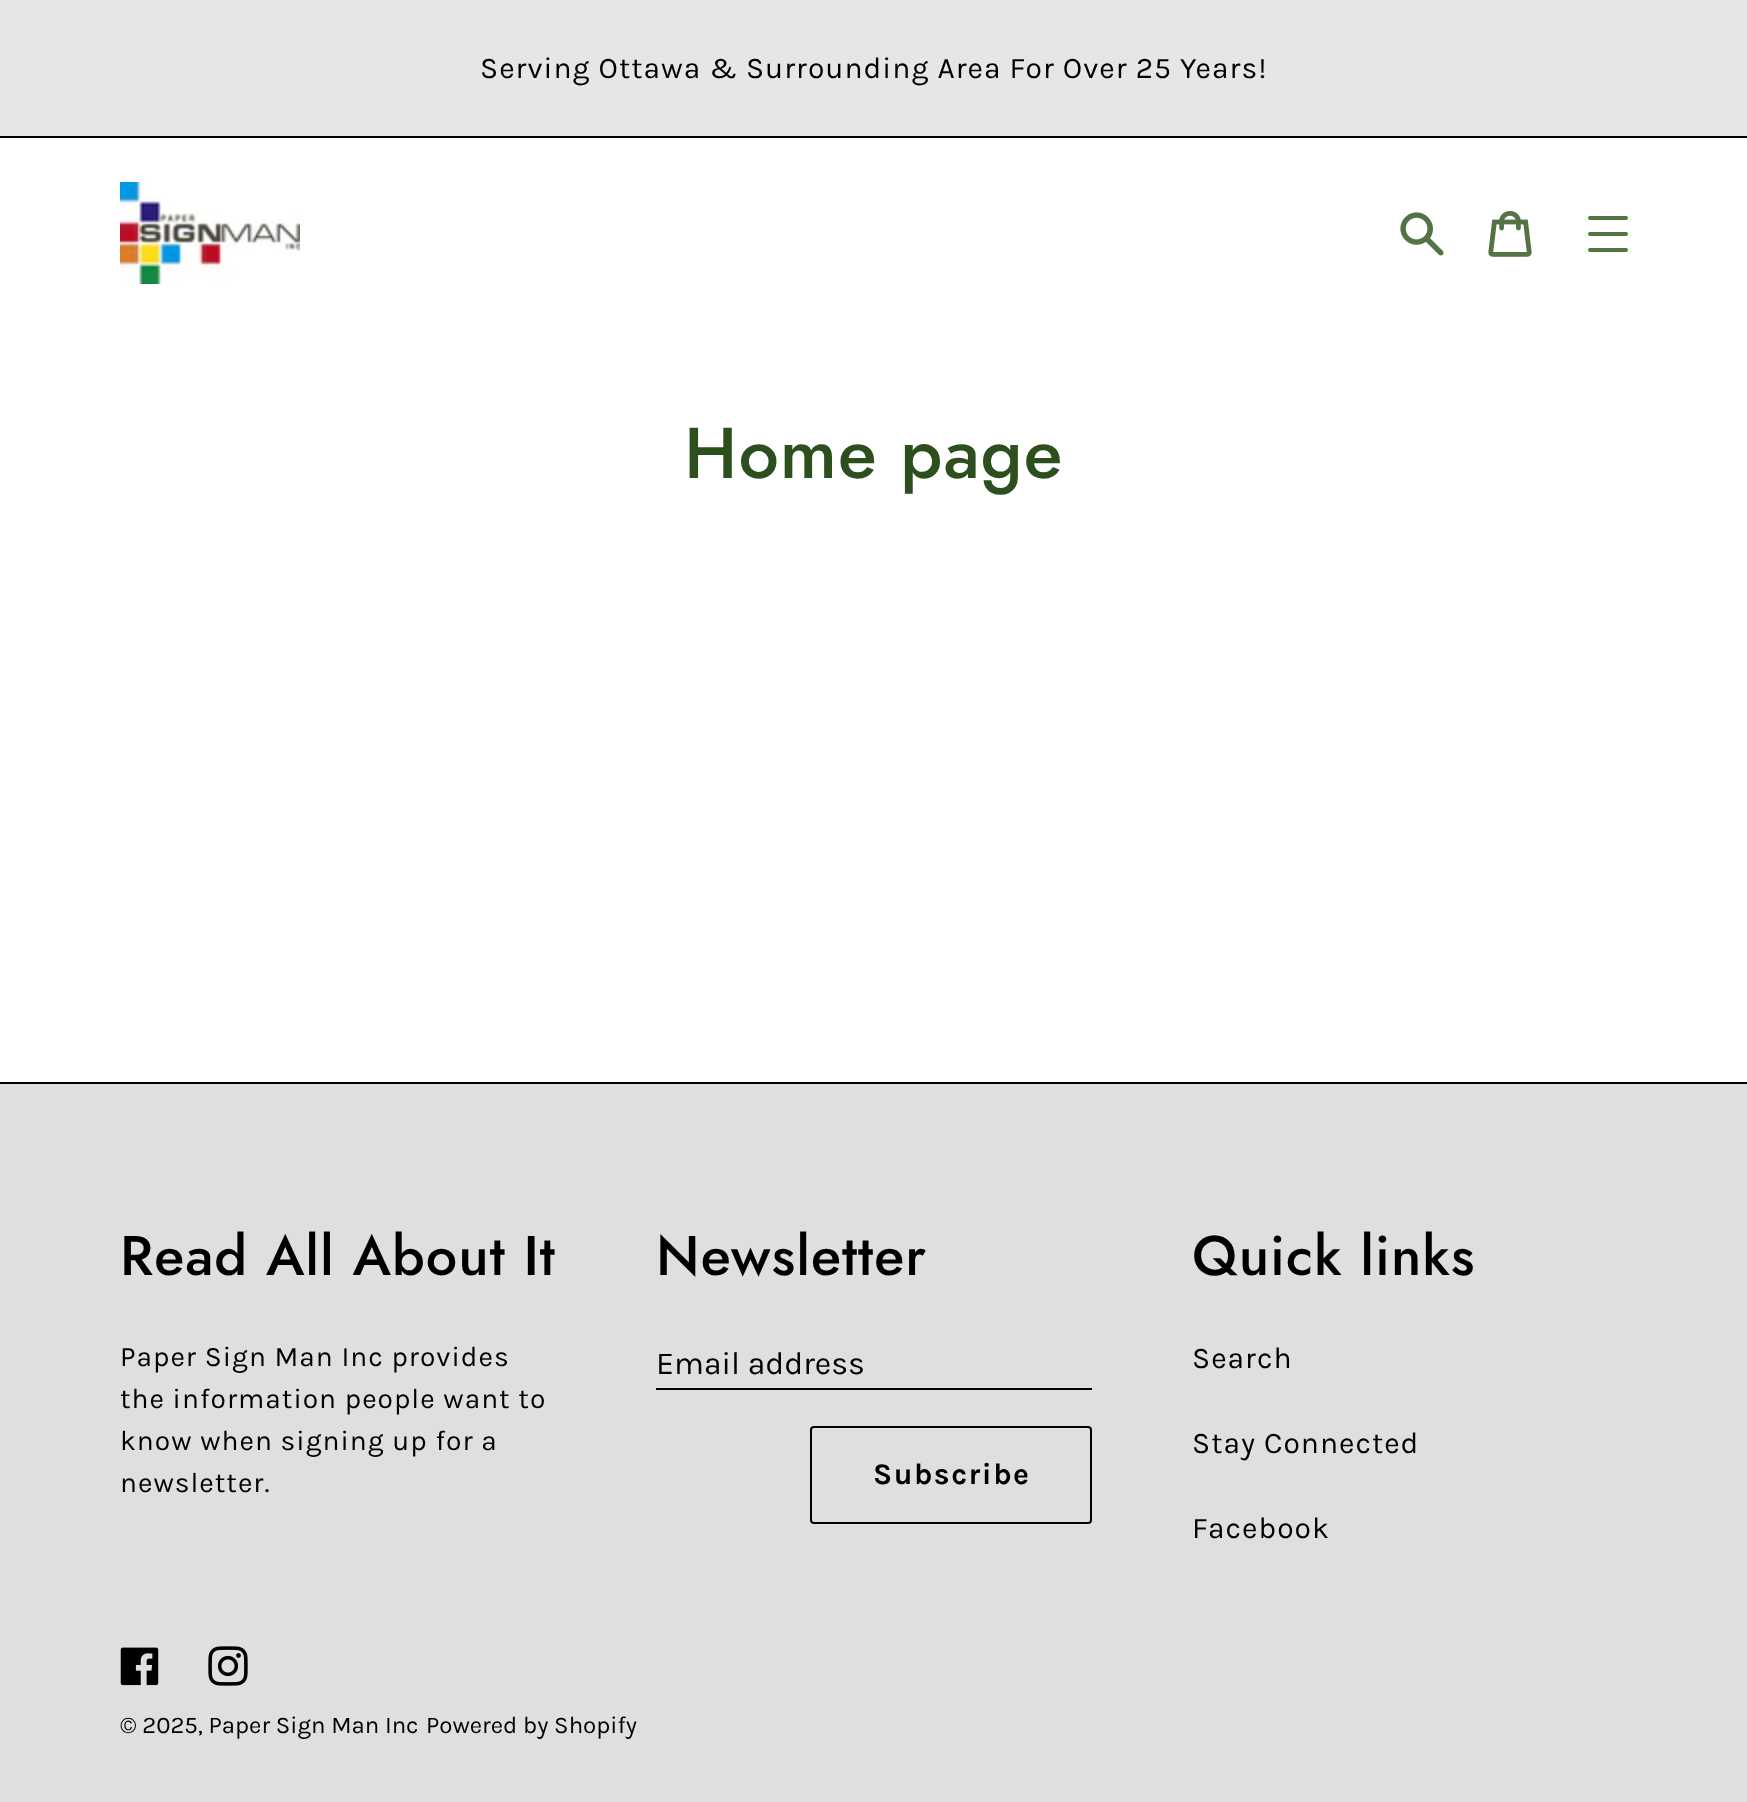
(async () => {
    const canvas = document.querySelector("canvas");
    canvas.width = 1747;
    canvas.height = 1802;
    const context = canvas.getContext("2d");
    context.miterLimit = 4;
    context.fontKerning = "normal";
    function write(s, x, y, font, color) {
        context.font = font;
        context.fillStyle = color;
        context.fillText(s, x, y);
    }
    function block(x, y, w, h, color) {
        context.fillStyle = color;
        context.fillRect(x, y, w, h);
    }
    function card(x, y, w, h, r, color) {
        context.fillStyle = color;
        context.beginPath();
        context.roundRect(x, y, w, h, r);
        context.fill();
    }
    async function photo(src, x, y, w, h) {
        const img = new Image();
        img.src = src;
        await img.decode();
        context.drawImage(img, x, y, w, h);
    }

    block(0, 0, 1747, 1802, "rgb(255, 255, 255)");
    block(0, 0, 1747, 136, "rgb(230, 230, 230)");
    block(0, 136, 1747, 2, "rgb(0, 0, 0)");
    context.letterSpacing = "1px";
    write("Serving Ottawa & Surrounding Area For Over 25 Years!", 480, 78, "30px Karla", "rgb(0, 0, 0)");
    await photo("media/1.png", 120, 182, 180, 102);
    await photo("media/2.png", 1400, 212, 44, 44);
    await photo("media/3.png", 1488, 211, 44, 46);
    card(1588, 232, 40, 4, 2, "rgb(83, 115, 68)");
    card(1588, 216, 40, 4, 2, "rgb(83, 115, 68)");
    card(1588, 248, 40, 4, 2, "rgb(83, 115, 68)");
    write("Home page", 684, 478, "500 71.75px Jost", "rgb(45, 79, 30)");
    block(0, 1084, 1747, 718, "rgb(223, 223, 223)");
    block(0, 1082, 1747, 2, "rgb(0, 0, 0)");
    write("Read All About It", 120, 1275, "500 55.75px Jost", "rgb(0, 0, 0)");
    write("Paper Sign Man Inc provides", 120, 1366, "28.1px Karla", "rgb(0, 0, 0)");
    write("the information people want to", 120, 1408, "28.1px Karla", "rgb(0, 0, 0)");
    write("know when signing up for a", 120, 1450, "28.1px Karla", "rgb(0, 0, 0)");
    write("newsletter.", 120, 1492, "28.1px Karla", "rgb(0, 0, 0)");
    write("Newsletter", 656, 1275, "500 55.75px Jost", "rgb(0, 0, 0)");
    context.letterSpacing = "0px";
    write("Email address", 656, 1374, "32px Karla", "rgb(0, 0, 0)");
    block(656, 1388, 436, 2, "rgb(0, 0, 0)");
    context.beginPath();
    context.roundRect(811, 1427, 280, 96, 3);
    context.strokeStyle = "rgb(0, 0, 0)";
    context.lineWidth = 2;
    context.stroke();
    context.letterSpacing = "1.5px";
    write("Subscribe", 873, 1484, "bold 30px Karla", "rgb(0, 0, 0)");
    context.letterSpacing = "1px";
    write("Quick links", 1192, 1275, "500 55.75px Jost", "rgb(0, 0, 0)");
    write("Search", 1192, 1368, "30px Karla", "rgb(0, 0, 0)");
    write("Stay Connected", 1192, 1453, "30px Karla", "rgb(0, 0, 0)");
    write("Facebook", 1192, 1538, "30px Karla", "rgb(0, 0, 0)");
    await photo("media/4.png", 120, 1647, 39, 39);
    await photo("media/5.png", 208, 1646, 40, 40);
    context.letterSpacing = "0px";
    write("© 2025, Paper Sign Man Inc", 120, 1733, "24px Karla", "rgb(0, 0, 0)");
    write("Powered by Shopify", 426, 1733, "24px Karla", "rgb(0, 0, 0)");
})();
